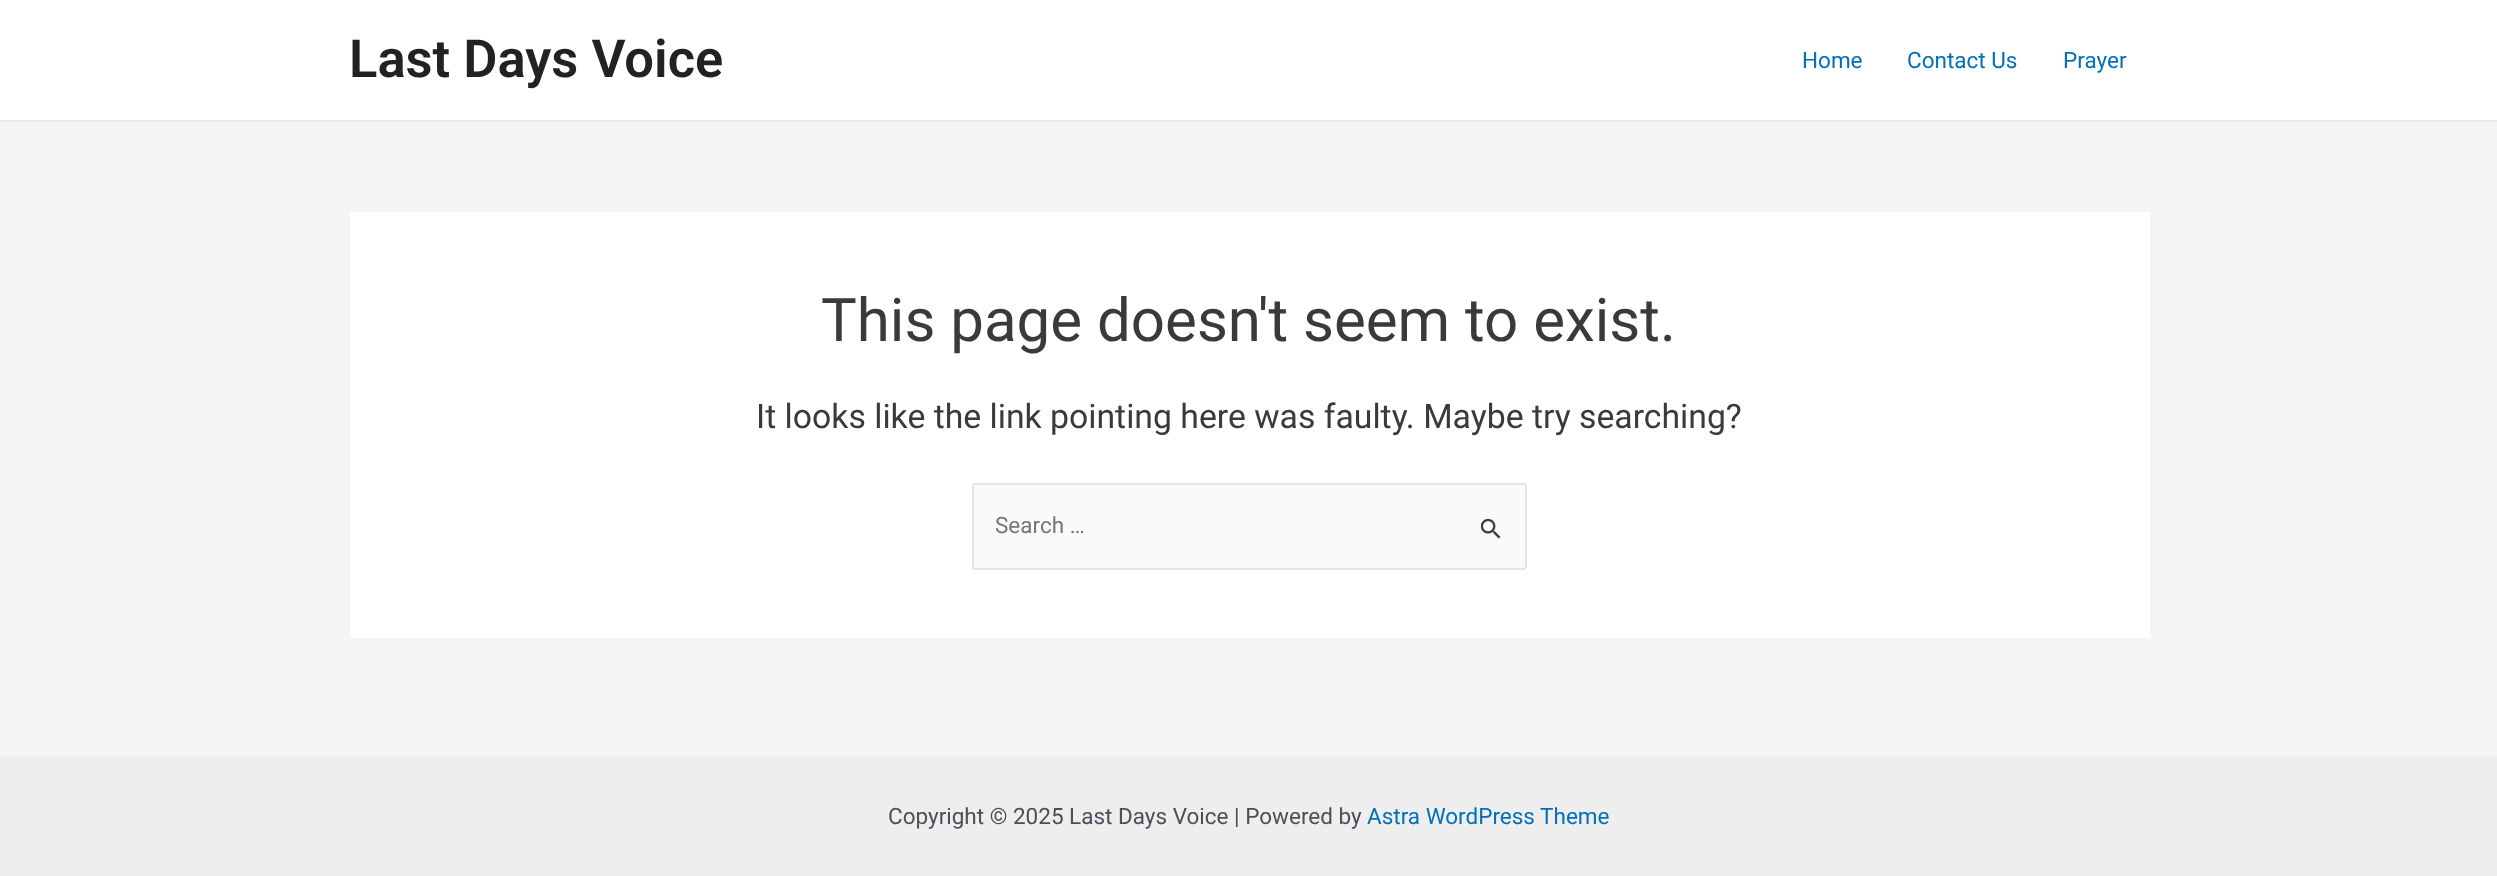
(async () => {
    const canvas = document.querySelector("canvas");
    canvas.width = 2497;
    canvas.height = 876;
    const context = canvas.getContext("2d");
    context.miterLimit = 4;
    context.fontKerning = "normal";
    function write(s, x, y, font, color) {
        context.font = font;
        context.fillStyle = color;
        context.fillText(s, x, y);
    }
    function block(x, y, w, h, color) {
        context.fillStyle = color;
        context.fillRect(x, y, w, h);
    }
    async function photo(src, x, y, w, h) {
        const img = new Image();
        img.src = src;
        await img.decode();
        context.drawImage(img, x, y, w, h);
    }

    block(0, 0, 2497, 876, "rgb(245, 245, 245)");
    block(0, 0, 2497, 120, "rgb(255, 255, 255)");
    block(0, 120, 2497, 2, "rgb(234, 234, 234)");
    write("Last Days Voice", 349, 77, "600 52.5px Roboto", "rgb(34, 34, 34)");
    write("Home", 1802, 68, "22.5px Roboto", "rgb(1, 112, 185)");
    write("Contact Us", 1907, 68, "22.5px Roboto", "rgb(1, 112, 185)");
    write("Prayer", 2063, 68, "22.5px Roboto", "rgb(1, 112, 185)");
    block(350, 212, 1800, 426, "rgb(255, 255, 255)");
    write("This page doesn't seem to exist.", 821, 341, "60px Roboto", "rgb(58, 58, 58)");
    write("It looks like the link pointing here was faulty. Maybe try searching?", 756, 428, "33.75px Roboto", "rgb(58, 58, 58)");
    context.fillStyle = "rgb(250, 250, 250)";
    context.beginPath();
    context.roundRect(973, 484, 553, 85, 2);
    context.fill();
    context.strokeStyle = "rgb(229, 229, 229)";
    context.lineWidth = 2;
    context.stroke();
    write("Search …", 995, 533, "22.5px Roboto", "rgb(117, 117, 117)");
    await photo("media/1.png", 1481, 518, 20, 21);
    block(0, 756, 2497, 120, "rgb(238, 238, 238)");
    write("Copyright © 2025 Last Days Voice | Powered by", 888, 824, "22.5px Roboto", "rgb(75, 79, 88)");
    write("Astra WordPress Theme", 1367, 824, "22.5px Roboto", "rgb(1, 112, 185)");
})();
